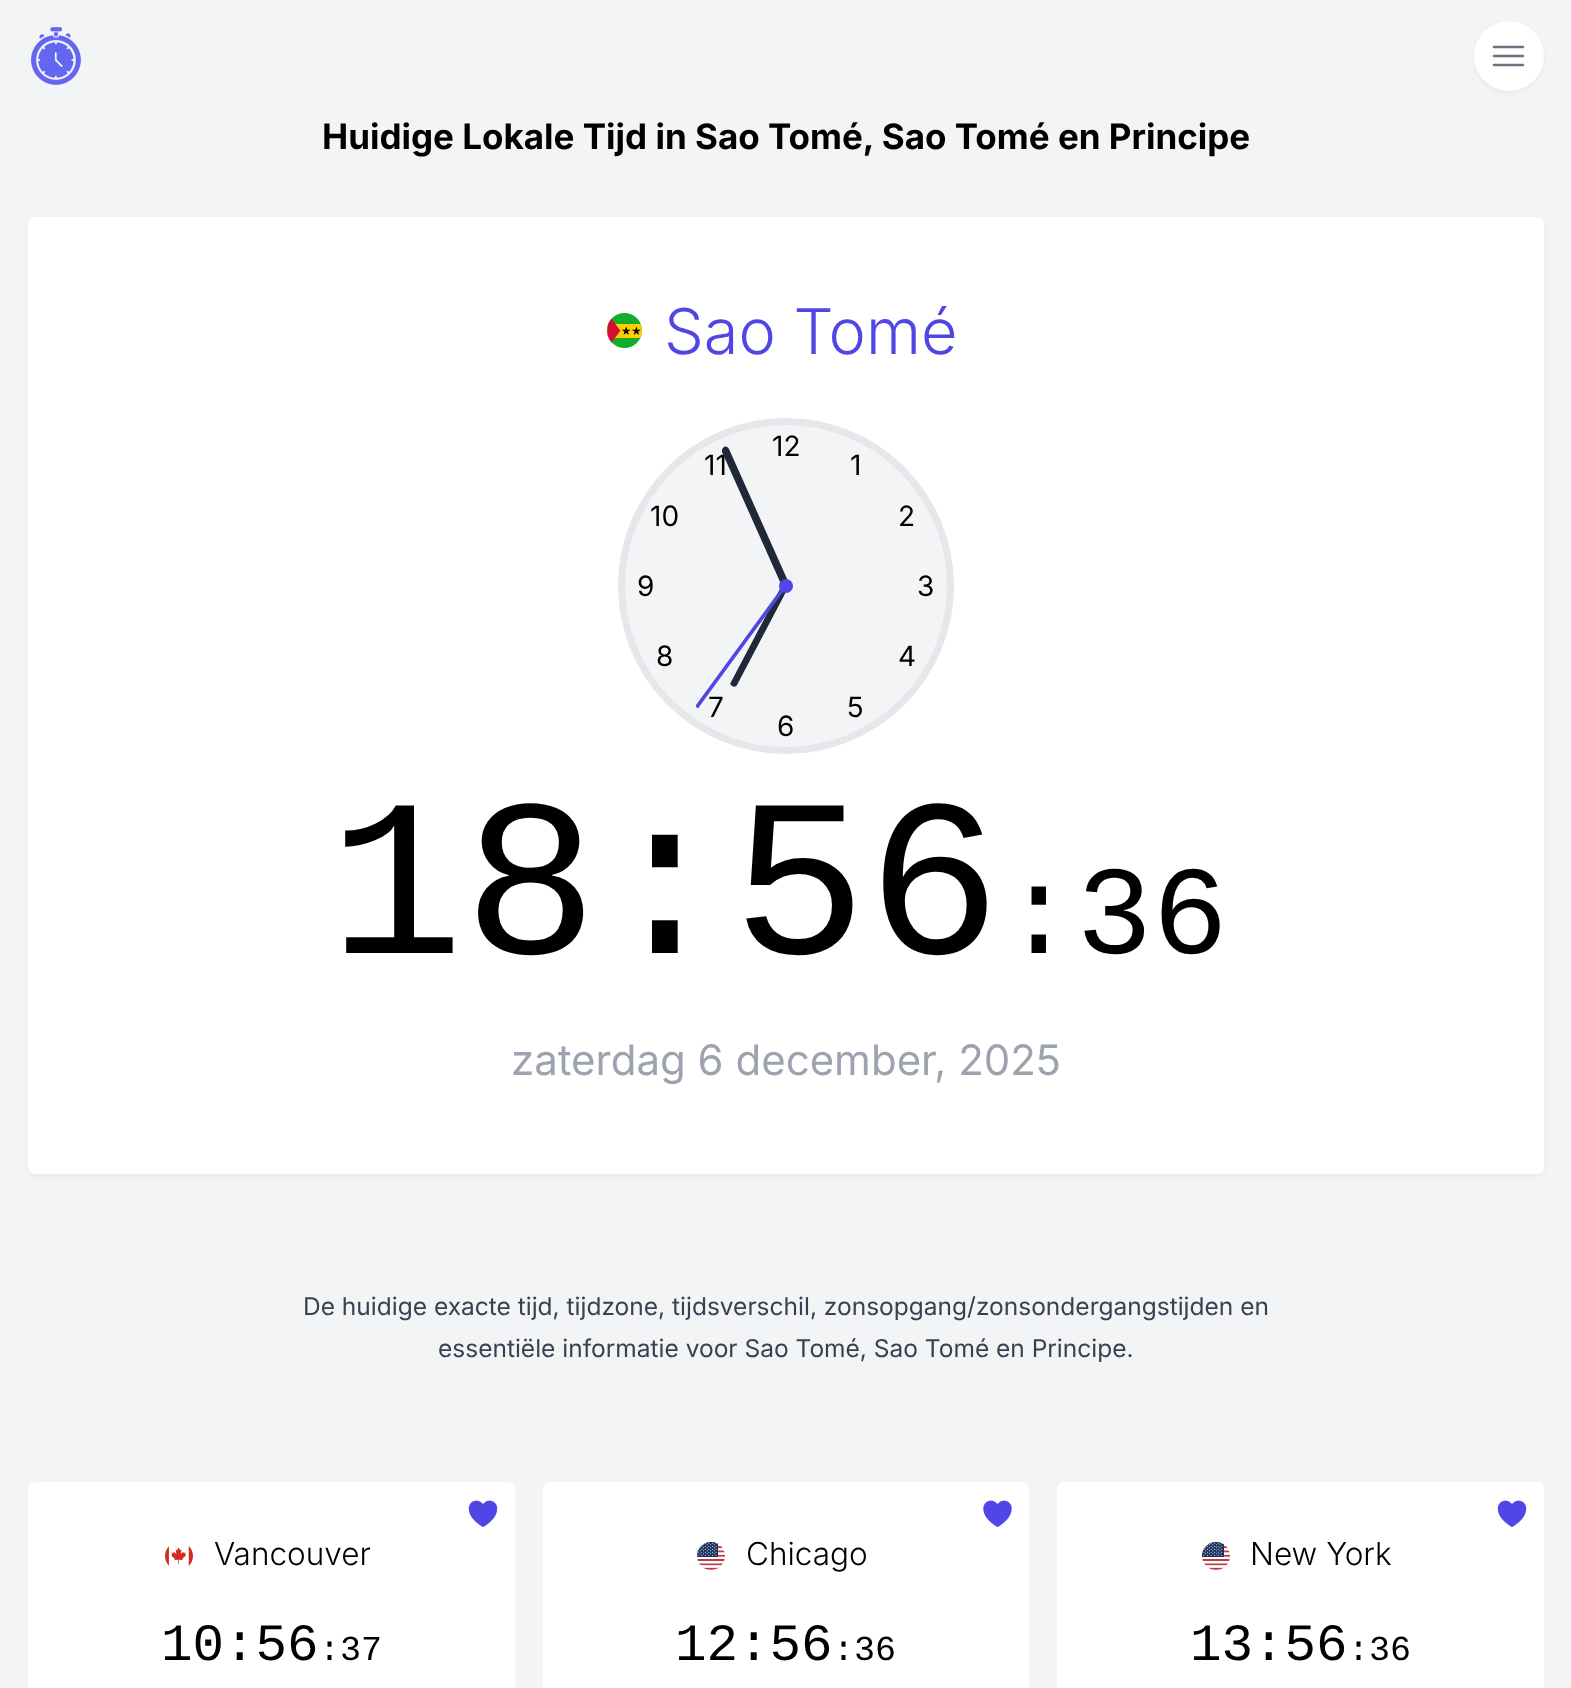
(async () => {
    const canvas = document.querySelector("canvas");
    canvas.width = 1571;
    canvas.height = 1688;
    const context = canvas.getContext("2d");
    context.miterLimit = 4;
    context.fontKerning = "normal";
    function write(s, x, y, font, color) {
        context.font = font;
        context.fillStyle = color;
        context.fillText(s, x, y);
    }
    function block(x, y, w, h, color) {
        context.fillStyle = color;
        context.fillRect(x, y, w, h);
    }
    function card(x, y, w, h, r, color) {
        context.fillStyle = color;
        context.beginPath();
        context.roundRect(x, y, w, h, r);
        context.fill();
    }
    async function photo(src, x, y, w, h) {
        const img = new Image();
        img.src = src;
        await img.decode();
        context.drawImage(img, x, y, w, h);
    }

    block(0, 0, 1571, 1688, "rgb(243, 244, 246)");
    await photo("media/1.png", 31, 27, 50, 58);
    context.fillStyle = "rgba(0, 0, 0, 0.05)";
    context.filter = "blur(2px)";
    context.beginPath();
    context.roundRect(1474, 23, 70, 70, 35);
    context.fill();
    context.filter = "none";
    context.fillStyle = "rgb(255, 255, 255)";
    context.beginPath();
    context.arc(1509, 56, 35, 0, Math.PI * 2);
    context.fill();
    context.beginPath();
    context.moveTo(1494, 47);
    context.lineTo(1523, 47);
    context.moveTo(1494, 56);
    context.lineTo(1523, 56);
    context.moveTo(1494, 65);
    context.lineTo(1523, 65);
    context.strokeStyle = "rgb(107, 114, 128)";
    context.lineWidth = 2.6;
    context.lineCap = "round";
    context.lineJoin = "round";
    context.stroke();
    write("Huidige Lokale Tijd in Sao Tomé, Sao Tomé en Principe", 322, 149, "bold 35px Inter", "rgb(0, 0, 0)");
    context.fillStyle = "rgba(0, 0, 0, 0.05)";
    context.filter = "blur(2px)";
    context.beginPath();
    context.roundRect(28, 219, 1516, 957, 7);
    context.fill();
    context.filter = "none";
    card(28, 217, 1516, 957, 7, "rgb(255, 255, 255)");
    await photo("media/2.png", 607, 313, 35, 35);
    write("Sao Tomé", 664, 354, "300 63px Inter", "rgb(79, 70, 229)");
    context.fillStyle = "rgb(243, 244, 246)";
    context.beginPath();
    context.arc(786, 586, 164.5, 0, Math.PI * 2);
    context.fill();
    context.strokeStyle = "rgb(229, 231, 235)";
    context.lineWidth = 7;
    context.stroke();
    write("12", 772, 456, "28px Inter", "rgb(0, 0, 0)");
    write("11", 704, 475, "28px Inter", "rgb(0, 0, 0)");
    context.fillStyle = "rgb(31, 41, 55)";
    context.beginPath();
    context.moveTo(732, 686);
    context.bezierCurveTo(730, 685, 730, 683, 731, 682);
    context.lineTo(781, 587);
    context.bezierCurveTo(782, 585, 784, 584, 786, 585);
    context.bezierCurveTo(787, 586, 788, 588, 787, 590);
    context.lineTo(737, 685);
    context.bezierCurveTo(736, 687, 734, 687, 732, 686);
    context.closePath();
    context.fill();
    context.beginPath();
    context.moveTo(724, 447);
    context.bezierCurveTo(726, 446, 728, 447, 729, 449);
    context.lineTo(788, 581);
    context.bezierCurveTo(788, 582, 788, 585, 786, 585);
    context.bezierCurveTo(784, 586, 782, 585, 781, 584);
    context.lineTo(722, 452);
    context.bezierCurveTo(722, 450, 722, 448, 724, 447);
    context.closePath();
    context.fill();
    write("1", 850, 475, "28px Inter", "rgb(0, 0, 0)");
    write("10", 650, 526, "28px Inter", "rgb(0, 0, 0)");
    write("2", 898, 526, "28px Inter", "rgb(0, 0, 0)");
    write("9", 637, 596, "28px Inter", "rgb(0, 0, 0)");
    write("7", 708, 717, "28px Inter", "rgb(0, 0, 0)");
    context.fillStyle = "rgb(79, 70, 229)";
    context.beginPath();
    context.moveTo(697, 708);
    context.bezierCurveTo(696, 707, 696, 706, 696, 705);
    context.lineTo(783, 586);
    context.bezierCurveTo(784, 585, 785, 585, 786, 585);
    context.bezierCurveTo(787, 586, 787, 587, 786, 588);
    context.lineTo(699, 707);
    context.bezierCurveTo(699, 708, 698, 708, 697, 708);
    context.closePath();
    context.fill();
    context.beginPath();
    context.arc(786, 586, 7, 0, Math.PI * 2);
    context.fill();
    write("3", 917, 596, "28px Inter", "rgb(0, 0, 0)");
    write("8", 656, 666, "28px Inter", "rgb(0, 0, 0)");
    write("4", 898, 666, "28px Inter", "rgb(0, 0, 0)");
    write("5", 847, 717, "28px Inter", "rgb(0, 0, 0)");
    write("6", 777, 736, "28px Inter", "rgb(0, 0, 0)");
    write("18:56", 329, 953, "224px Liberation Mono", "rgb(0, 0, 0)");
    write(":36", 1001, 953, "126px Liberation Mono", "rgb(0, 0, 0)");
    write("zaterdag 6 december, 2025", 511, 1075, "42px Inter", "rgb(156, 163, 175)");
    write("De huidige exacte tijd, tijdzone, tijdsverschil, zonsopgang/zonsondergangstijden en", 303, 1315, "24.5px Inter", "rgb(55, 65, 81)");
    write("essentiële informatie voor Sao Tomé, Sao Tomé en Principe.", 438, 1357, "24.5px Inter", "rgb(55, 65, 81)");
    card(28, 1482, 487, 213, 7, "rgb(255, 255, 255)");
    await photo("media/3.png", 468, 1500, 30, 27);
    await photo("media/4.png", 165, 1545, 28, 22);
    write("Vancouver", 214, 1565, "300 31.5px Inter", "rgb(0, 0, 0)");
    write("10:56", 161, 1660, "52.5px Liberation Mono", "rgb(0, 0, 0)");
    write(":37", 319, 1660, "35px Liberation Mono", "rgb(0, 0, 0)");
    card(543, 1482, 486, 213, 7, "rgb(255, 255, 255)");
    await photo("media/5.png", 983, 1500, 29, 27);
    await photo("media/6.png", 697, 1542, 28, 28);
    write("Chicago", 746, 1565, "300 31.5px Inter", "rgb(0, 0, 0)");
    write("12:56", 675, 1660, "52.5px Liberation Mono", "rgb(0, 0, 0)");
    write(":36", 833, 1660, "35px Liberation Mono", "rgb(0, 0, 0)");
    card(1057, 1482, 487, 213, 7, "rgb(255, 255, 255)");
    await photo("media/3.png", 1497, 1500, 30, 27);
    await photo("media/7.png", 1202, 1542, 28, 28);
    write("New York", 1250, 1565, "300 31.5px Inter", "rgb(0, 0, 0)");
    write("13:56", 1190, 1660, "52.5px Liberation Mono", "rgb(0, 0, 0)");
    write(":36", 1348, 1660, "35px Liberation Mono", "rgb(0, 0, 0)");
})();
